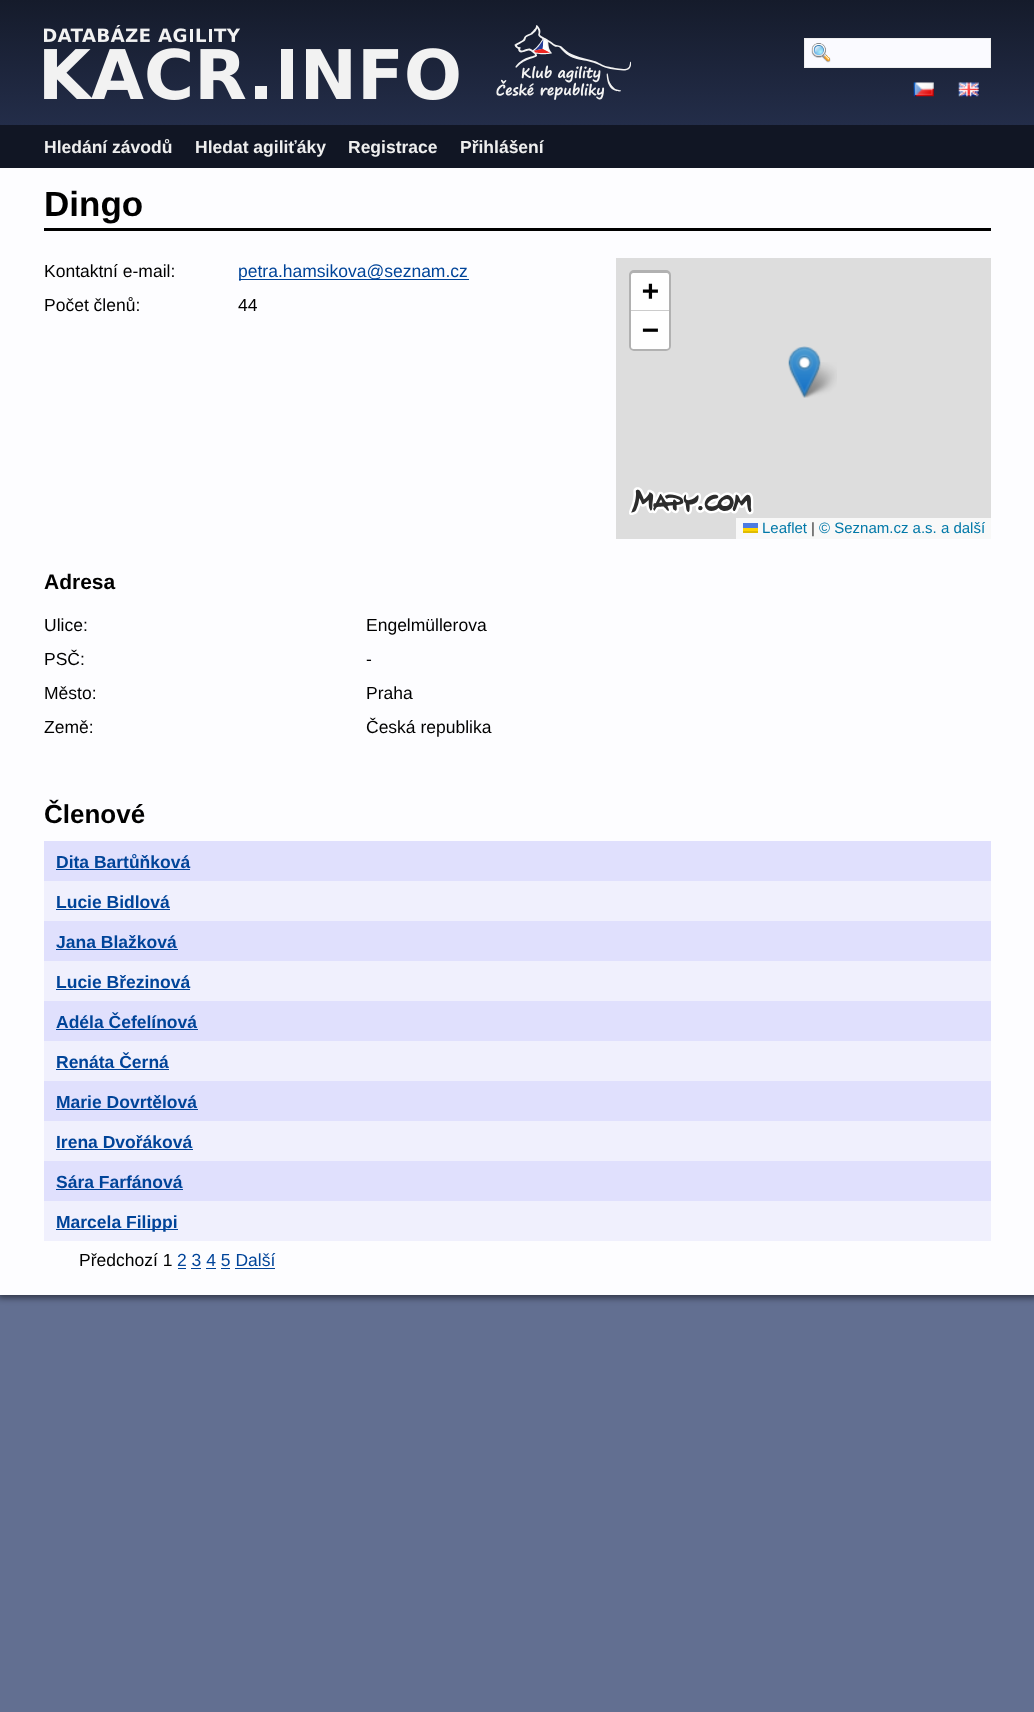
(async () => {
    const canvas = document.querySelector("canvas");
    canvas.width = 1034;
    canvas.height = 1712;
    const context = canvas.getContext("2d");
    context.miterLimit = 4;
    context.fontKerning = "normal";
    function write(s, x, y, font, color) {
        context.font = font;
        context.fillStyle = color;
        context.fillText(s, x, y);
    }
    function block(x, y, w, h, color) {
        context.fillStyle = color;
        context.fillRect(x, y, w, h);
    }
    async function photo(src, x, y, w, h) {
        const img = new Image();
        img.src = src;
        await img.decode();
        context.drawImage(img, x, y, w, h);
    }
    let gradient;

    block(0, 0, 1034, 1712, "rgb(98, 111, 145)");
    context.fillStyle = "rgba(0, 0, 0, 0.5)";
    context.filter = "blur(3px)";
    context.beginPath();
    context.rect(-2, -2, 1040, 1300);
    context.fill();
    context.filter = "none";
    gradient = context.createLinearGradient(518, 125, 518, 0);
    gradient.addColorStop(0, "rgb(35, 45, 73)");
    gradient.addColorStop(1, "rgb(21, 27, 43)");
    context.fillStyle = gradient;
    context.fillRect(0, 0, 1034, 125);
    await photo("media/1.png", 44, 25, 415, 75);
    await photo("media/2.png", 496, 25, 135, 75);
    block(0, 125, 1034, 43, "rgb(17, 22, 36)");
    block(805, 39, 185, 28, "rgb(250, 250, 255)");
    await photo("media/3.png", 811, 43, 20, 20);
    context.strokeStyle = "rgb(238, 238, 238)";
    context.strokeRect(804.5, 38.5, 186, 29);
    await photo("media/4.png", 913, 82, 21, 15);
    await photo("media/5.png", 958, 82, 21, 15);
    write("Hledání závodů", 44, 153, "bold 17.5px Liberation Sans", "rgb(238, 238, 238)");
    write("Hledat agiliťáky", 195, 153, "bold 17.5px Liberation Sans", "rgb(238, 238, 238)");
    write("Registrace", 348, 153, "bold 17.5px Liberation Sans", "rgb(238, 238, 238)");
    write("Přihlášení", 460, 153, "bold 17.5px Liberation Sans", "rgb(238, 238, 238)");
    block(0, 168, 1034, 1127, "rgb(253, 253, 255)");
    block(44, 228, 947, 3, "rgb(0, 0, 0)");
    write("Dingo", 44, 216, "bold 35px Liberation Sans", "rgb(0, 0, 0)");
    write("Kontaktní e-mail:", 44, 277, "17.5px Liberation Sans", "rgb(0, 0, 0)");
    block(239, 279, 230, 1, "rgb(0, 68, 153)");
    write("petra.hamsikova@seznam.cz", 238, 277, "17.5px Liberation Sans", "rgb(0, 68, 153)");
    write("Počet členů:", 44, 311, "17.5px Liberation Sans", "rgb(0, 0, 0)");
    write("44", 238, 311, "17.5px Liberation Sans", "rgb(0, 0, 0)");
    block(616, 258, 375, 281, "rgb(221, 221, 221)");
    context.beginPath();
    context.roundRect(630.5, 271.5, 39, 78, 3.5);
    context.strokeStyle = "rgb(177, 177, 177)";
    context.lineWidth = 3;
    context.stroke();
    context.fillStyle = "rgb(255, 255, 255)";
    context.beginPath();
    context.roundRect(631, 273, 38, 38, [2.5, 2.5, 0, 0]);
    context.fill();
    block(631, 310, 38, 1, "rgb(204, 204, 204)");
    write("+", 642, 300, "bold 28px DejaVu Sans Mono", "rgb(0, 0, 0)");
    context.fillStyle = "rgb(255, 255, 255)";
    context.beginPath();
    context.roundRect(631, 311, 38, 38, [0, 0, 2.5, 2.5]);
    context.fill();
    write("−", 642, 339, "bold 28px DejaVu Sans Mono", "rgb(0, 0, 0)");
    await photo("media/6.png", 629, 487, 125, 28);
    block(736, 518, 255, 21, "rgb(248, 248, 248)");
    write("Leaflet", 762, 533, "15px Liberation Sans", "rgb(0, 120, 168)");
    block(743, 523, 15, 5, "rgb(76, 123, 225)");
    block(743, 528, 15, 3, "rgb(255, 213, 0)");
    block(743, 531, 15, 2, "rgb(224, 188, 0)");
    write("|", 811, 533, "15px Liberation Sans", "rgb(51, 51, 51)");
    write("© Seznam.cz a.s. a další", 819, 533, "15px Liberation Sans", "rgb(0, 120, 168)");
    await photo("media/8.png", 800, 362, 37, 36);
    await photo("media/7.png", 788, 346, 33, 52);
    write("Adresa", 44, 589, "bold 21px Liberation Sans", "rgb(0, 0, 0)");
    write("Ulice:", 44, 631, "17.5px Liberation Sans", "rgb(0, 0, 0)");
    write("Engelmüllerova", 366, 631, "17.5px Liberation Sans", "rgb(0, 0, 0)");
    write("PSČ:", 44, 665, "17.5px Liberation Sans", "rgb(0, 0, 0)");
    write("-", 366, 665, "17.5px Liberation Sans", "rgb(0, 0, 0)");
    write("Město:", 44, 699, "17.5px Liberation Sans", "rgb(0, 0, 0)");
    write("Praha", 366, 699, "17.5px Liberation Sans", "rgb(0, 0, 0)");
    write("Země:", 44, 733, "17.5px Liberation Sans", "rgb(0, 0, 0)");
    write("Česká republika", 366, 733, "17.5px Liberation Sans", "rgb(0, 0, 0)");
    write("Členové", 44, 823, "bold 26px Liberation Sans", "rgb(0, 0, 0)");
    block(44, 841, 947, 40, "rgb(224, 224, 253)");
    write("Dita Bartůňková", 56, 868, "bold 17.5px Liberation Sans", "rgb(0, 68, 153)");
    block(56, 869, 134, 1, "rgb(0, 68, 153)");
    block(44, 881, 947, 40, "rgb(240, 240, 253)");
    write("Lucie Bidlová", 56, 908, "bold 17.5px Liberation Sans", "rgb(0, 68, 153)");
    block(56, 909, 114, 1, "rgb(0, 68, 153)");
    block(44, 921, 947, 40, "rgb(224, 224, 253)");
    write("Jana Blažková", 56, 948, "bold 17.5px Liberation Sans", "rgb(0, 68, 153)");
    block(56, 949, 122, 1, "rgb(0, 68, 153)");
    block(44, 961, 947, 40, "rgb(240, 240, 253)");
    write("Lucie Březinová", 56, 988, "bold 17.5px Liberation Sans", "rgb(0, 68, 153)");
    block(56, 989, 134, 1, "rgb(0, 68, 153)");
    block(44, 1001, 947, 40, "rgb(224, 224, 253)");
    write("Adéla Čefelínová", 56, 1028, "bold 17.5px Liberation Sans", "rgb(0, 68, 153)");
    block(56, 1029, 142, 1, "rgb(0, 68, 153)");
    block(44, 1041, 947, 40, "rgb(240, 240, 253)");
    write("Renáta Černá", 56, 1068, "bold 17.5px Liberation Sans", "rgb(0, 68, 153)");
    block(56, 1069, 113, 1, "rgb(0, 68, 153)");
    block(44, 1081, 947, 40, "rgb(224, 224, 253)");
    write("Marie Dovrtělová", 56, 1108, "bold 17.5px Liberation Sans", "rgb(0, 68, 153)");
    block(56, 1109, 142, 1, "rgb(0, 68, 153)");
    block(44, 1121, 947, 40, "rgb(240, 240, 253)");
    write("Irena Dvořáková", 56, 1148, "bold 17.5px Liberation Sans", "rgb(0, 68, 153)");
    block(56, 1149, 137, 1, "rgb(0, 68, 153)");
    block(44, 1161, 947, 40, "rgb(224, 224, 253)");
    write("Sára Farfánová", 56, 1188, "bold 17.5px Liberation Sans", "rgb(0, 68, 153)");
    block(56, 1189, 127, 1, "rgb(0, 68, 153)");
    block(44, 1201, 947, 40, "rgb(240, 240, 253)");
    block(56, 1229, 122, 1, "rgb(0, 68, 153)");
    write("Marcela Filippi", 56, 1228, "bold 17.5px Liberation Sans", "rgb(0, 68, 153)");
    write("Předchozí 1", 79, 1266, "17.5px Liberation Sans", "rgb(0, 0, 0)");
    write("2 3 4 5 Další", 177, 1266, "17.5px Liberation Sans", "rgb(0, 68, 153)");
    block(178, 1268, 8, 1, "rgb(0, 68, 153)");
    block(191, 1268, 10, 1, "rgb(0, 68, 153)");
    block(206, 1268, 10, 1, "rgb(0, 68, 153)");
    block(221, 1268, 9, 1, "rgb(0, 68, 153)");
    block(235, 1268, 40, 1, "rgb(0, 68, 153)");
})();
